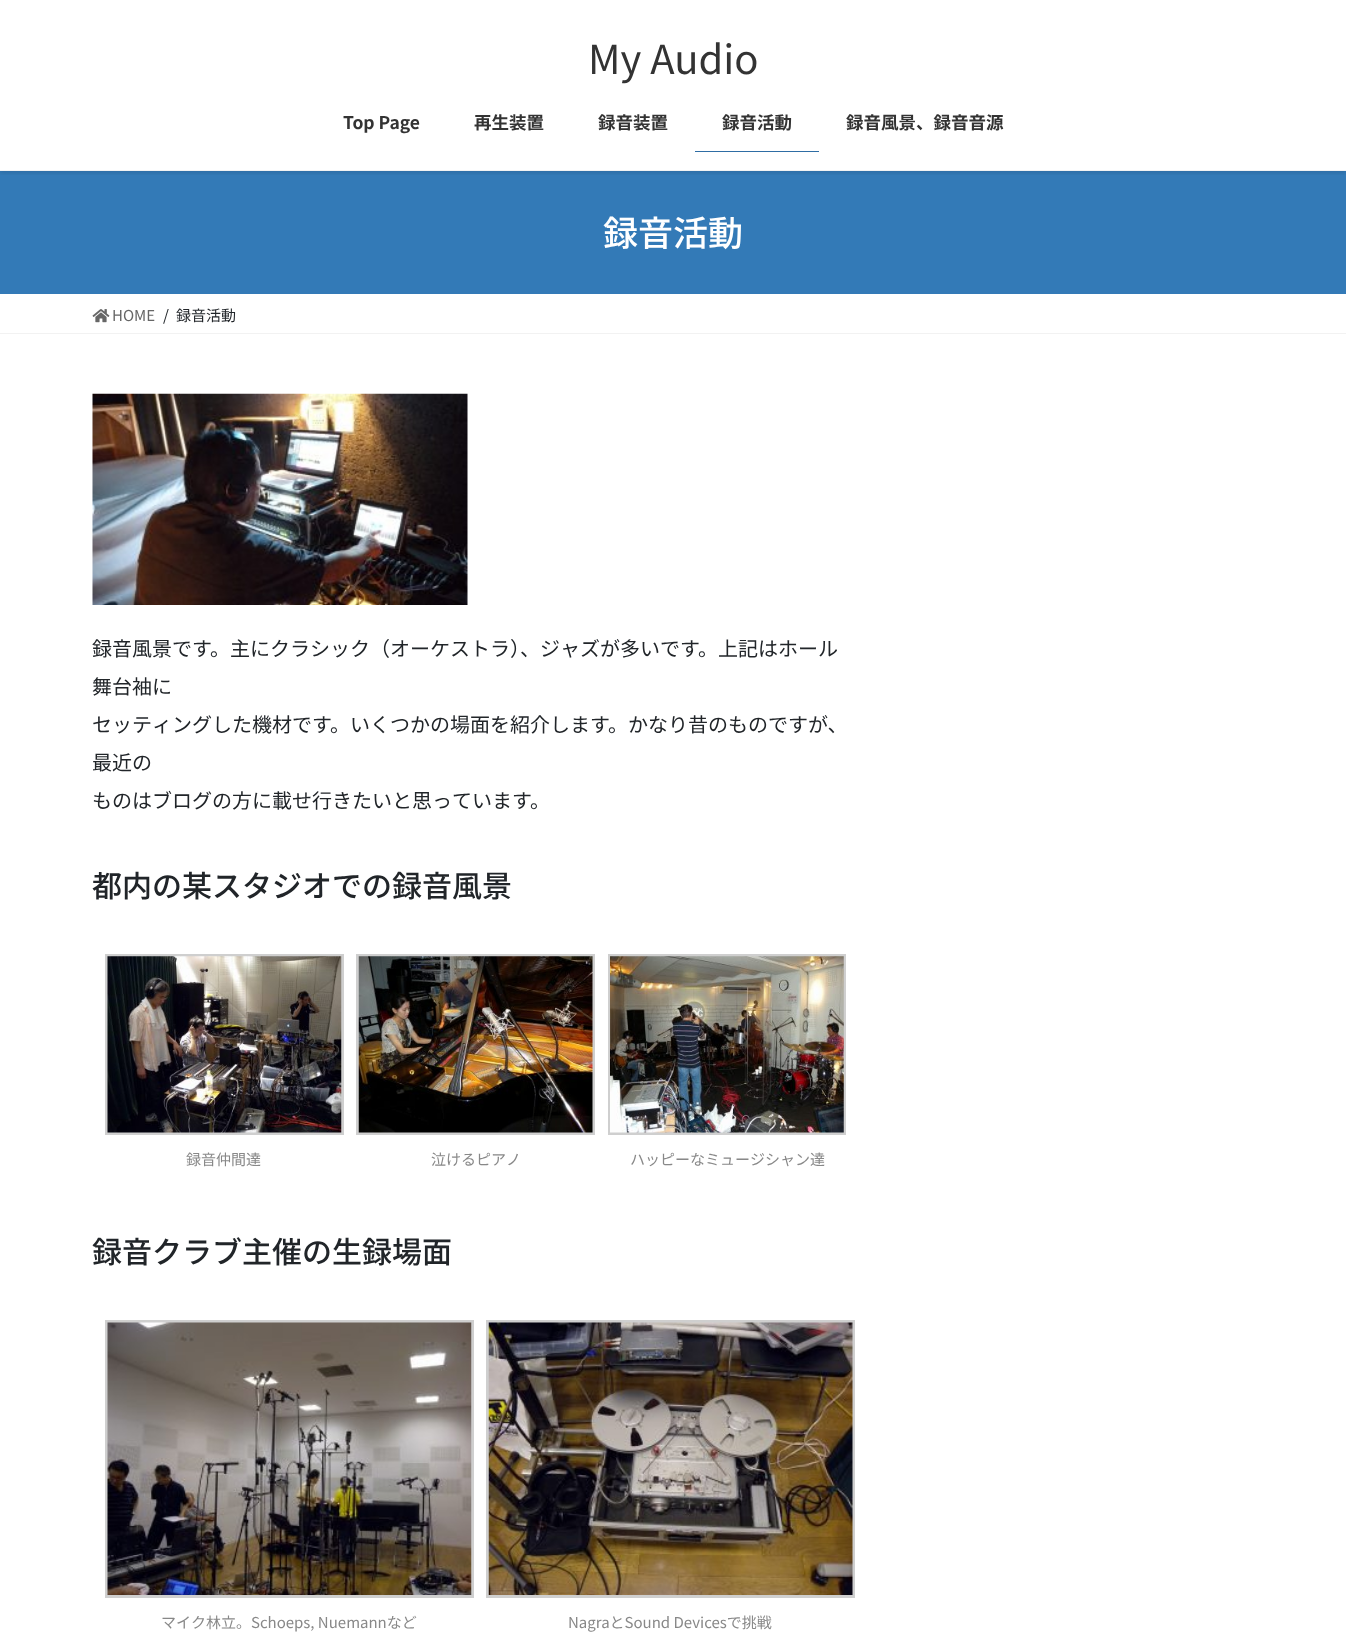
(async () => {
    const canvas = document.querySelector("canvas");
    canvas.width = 1346;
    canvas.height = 1634;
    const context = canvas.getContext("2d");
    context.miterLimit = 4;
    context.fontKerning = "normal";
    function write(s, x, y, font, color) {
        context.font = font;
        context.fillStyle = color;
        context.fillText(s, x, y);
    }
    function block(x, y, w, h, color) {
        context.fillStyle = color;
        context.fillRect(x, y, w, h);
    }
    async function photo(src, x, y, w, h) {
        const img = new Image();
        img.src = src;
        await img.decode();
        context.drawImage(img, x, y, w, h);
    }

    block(0, 0, 1346, 1634, "rgb(255, 255, 255)");
    block(0, 171, 1346, 123, "rgb(51, 122, 183)");
    context.save();
    context.beginPath();
    context.rect(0, 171, 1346, 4);
    context.clip();
    context.fillStyle = "rgba(0, 0, 0, 0.1)";
    context.filter = "blur(2px)";
    context.beginPath();
    context.rect(0, 1, 1346, 172);
    context.fill();
    context.filter = "none";
    context.restore();
    block(0, 170, 1346, 1, "rgb(242, 242, 242)");
    write("My Audio", 588, 74, "40px Noto Sans JP", "rgb(51, 51, 51)");
    write("Top Page", 343, 129, "bold 17.5px Noto Sans JP", "rgb(51, 51, 51)");
    write("再生装置", 474, 129, "bold 17.5px Noto Sans JP", "rgb(51, 51, 51)");
    write("録音装置", 598, 129, "bold 17.5px Noto Sans JP", "rgb(51, 51, 51)");
    write("録音活動", 722, 129, "bold 17.5px Noto Sans JP", "rgb(51, 51, 51)");
    block(695, 151, 124, 1, "rgb(46, 109, 164)");
    write("録音風景、録音音源", 846, 129, "bold 17.5px Noto Sans JP", "rgb(51, 51, 51)");
    write("録音活動", 603, 246, "500 35px Noto Sans JP", "rgb(255, 255, 255)");
    block(0, 333, 1346, 1, "rgb(242, 242, 242)");
    await photo("media/1.png", 92, 309, 18, 14);
    write("HOME", 112, 321, "15px Noto Sans JP", "rgb(102, 102, 102)");
    write("/", 163, 321, "15px Noto Sans JP", "rgb(33, 37, 41)");
    write("録音活動", 176, 321, "15px Noto Sans JP", "rgb(33, 37, 41)");
    await photo("media/2.png", 92, 393, 376, 212);
    write("録音風景です。主にクラシック（オーケストラ）、ジャズが多いです。上記はホール", 92, 656, "20px Noto Sans JP", "rgb(33, 37, 41)");
    write("舞台袖に", 92, 694, "20px Noto Sans JP", "rgb(33, 37, 41)");
    write("セッティングした機材です。いくつかの場面を紹介します。かなり昔のものですが、", 92, 732, "20px Noto Sans JP", "rgb(33, 37, 41)");
    write("最近の", 92, 770, "20px Noto Sans JP", "rgb(33, 37, 41)");
    write("ものはブログの方に載せ行きたいと思っています。", 92, 808, "20px Noto Sans JP", "rgb(33, 37, 41)");
    write("都内の某スタジオでの録音風景", 92, 897, "500 30px Noto Sans JP", "rgb(33, 37, 41)");
    context.strokeStyle = "rgb(207, 207, 207)";
    context.lineWidth = 3;
    context.strokeRect(106.5, 955.5, 236, 178);
    await photo("media/3.png", 107, 956, 235, 177);
    write("録音仲間達", 186, 1165, "15px Noto Sans JP", "rgb(136, 136, 136)");
    context.strokeRect(357.5, 955.5, 236, 178);
    await photo("media/4.png", 358, 956, 235, 177);
    write("泣けるピアノ", 431, 1165, "15px Noto Sans JP", "rgb(136, 136, 136)");
    context.strokeRect(609.5, 955.5, 235, 178);
    await photo("media/5.png", 610, 956, 234, 177);
    write("ハッピーなミュージシャン達", 630, 1165, "15px Noto Sans JP", "rgb(136, 136, 136)");
    write("録音クラブ主催の生録場面", 92, 1263, "500 30px Noto Sans JP", "rgb(33, 37, 41)");
    context.strokeRect(106.5, 1321.5, 366, 275);
    await photo("media/6.png", 107, 1322, 365, 273);
    write("マイク林立。Schoeps, Nuemannなど", 161, 1628, "15px Noto Sans JP", "rgb(136, 136, 136)");
    context.strokeRect(487.5, 1321.5, 366, 275);
    await photo("media/7.png", 488, 1322, 365, 273);
    write("NagraとSound Devicesで挑戦", 568, 1628, "15px Noto Sans JP", "rgb(136, 136, 136)");
})();
